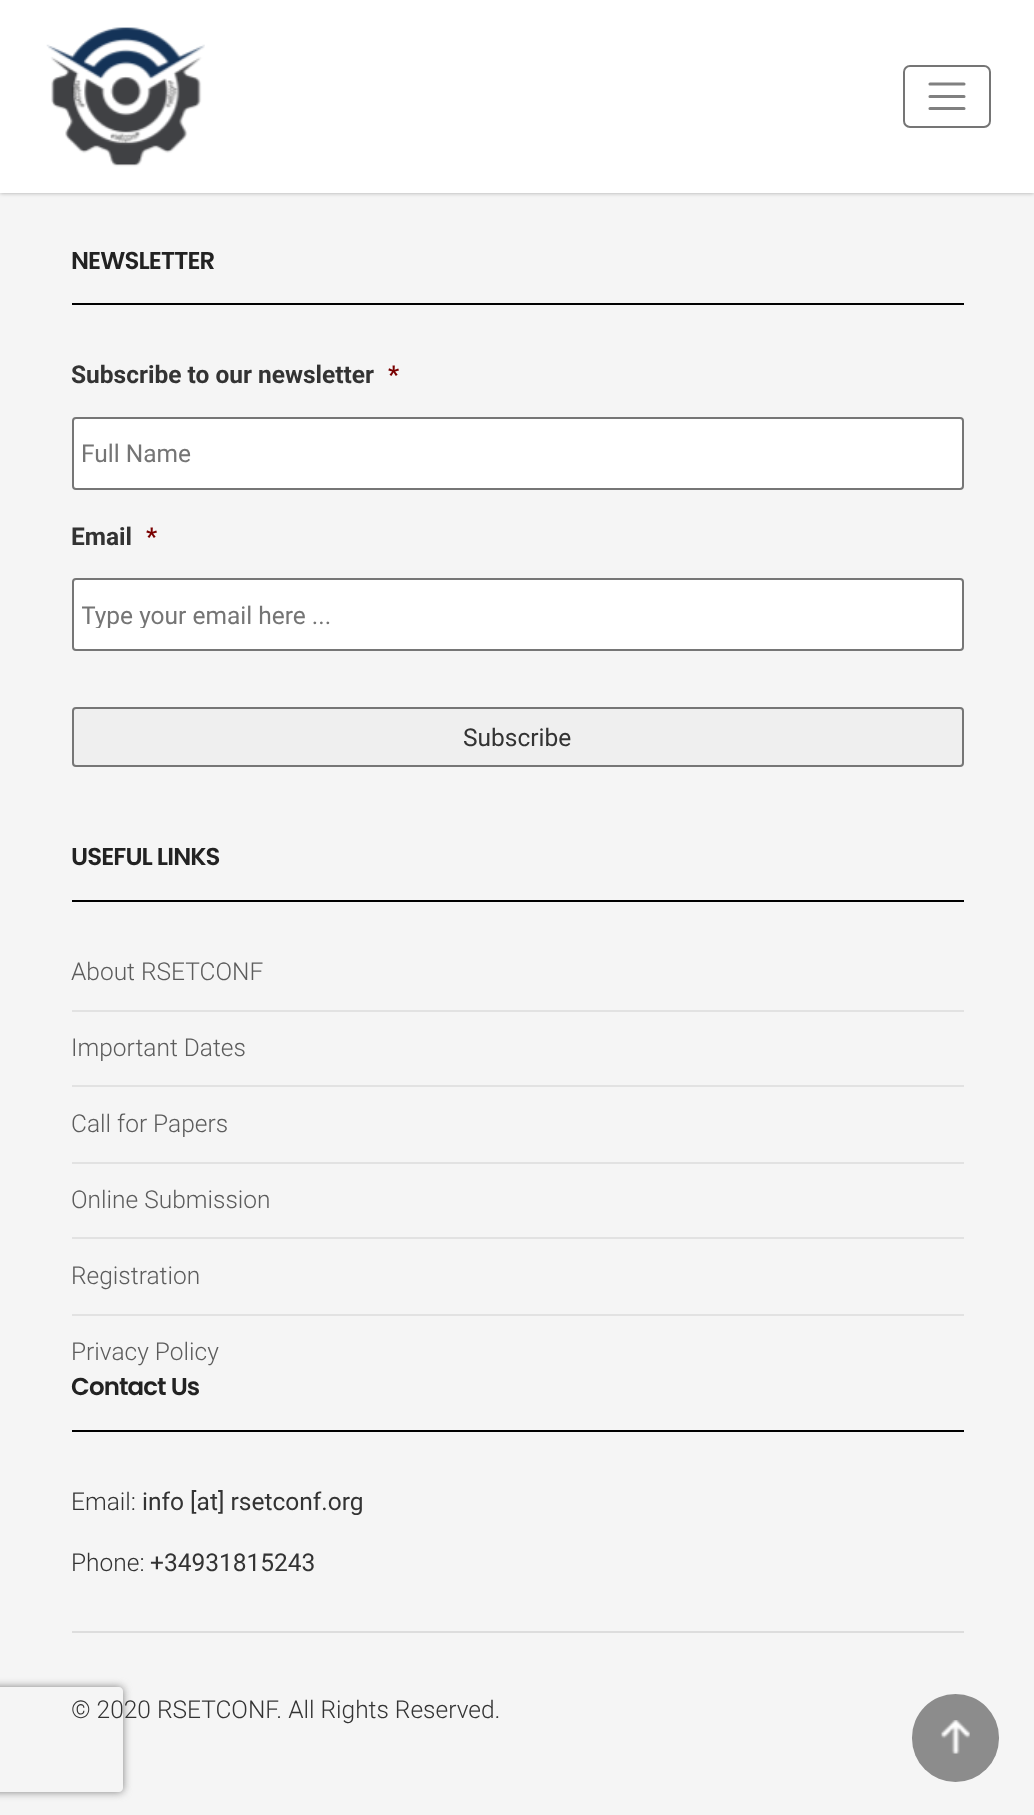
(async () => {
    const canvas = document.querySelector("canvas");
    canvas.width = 1034;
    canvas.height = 1815;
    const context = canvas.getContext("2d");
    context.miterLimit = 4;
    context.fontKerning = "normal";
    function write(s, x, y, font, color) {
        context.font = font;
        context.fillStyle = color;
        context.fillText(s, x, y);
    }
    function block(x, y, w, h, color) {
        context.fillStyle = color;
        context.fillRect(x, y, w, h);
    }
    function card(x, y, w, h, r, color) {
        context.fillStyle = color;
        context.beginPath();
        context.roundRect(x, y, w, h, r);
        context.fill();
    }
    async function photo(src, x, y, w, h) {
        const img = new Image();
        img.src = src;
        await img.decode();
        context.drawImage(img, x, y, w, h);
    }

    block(0, 0, 1034, 1815, "rgb(245, 245, 245)");
    context.fillStyle = "rgba(50, 50, 50, 0.4)";
    context.filter = "blur(2px)";
    context.beginPath();
    context.rect(0, 0, 1034, 193);
    context.fill();
    context.filter = "none";
    block(0, 0, 1034, 193, "rgb(255, 255, 255)");
    await photo("media/1.png", 46, 27, 159, 140);
    context.beginPath();
    context.roundRect(904, 66, 86, 61, 6);
    context.strokeStyle = "rgb(117, 117, 117)";
    context.lineWidth = 2;
    context.stroke();
    context.beginPath();
    context.moveTo(930, 84);
    context.lineTo(964, 84);
    context.moveTo(930, 96.5);
    context.lineTo(964, 96.5);
    context.moveTo(930, 108.5);
    context.lineTo(964, 108.5);
    context.strokeStyle = "rgb(128, 128, 128)";
    context.lineWidth = 3.1;
    context.lineCap = "round";
    context.stroke();
    block(72, 303, 892, 2, "rgb(0, 0, 0)");
    context.letterSpacing = "-0.9px";
    write("NEWSLETTER", 71, 269, "600 24.5px Poppins", "rgb(34, 34, 34)");
    context.letterSpacing = "0px";
    write("Subscribe to our newsletter", 71, 383, "bold 24.5px Roboto", "rgb(51, 51, 51)");
    write("*", 388, 383, "bold 24.5px Roboto", "rgb(121, 0, 0)");
    context.fillStyle = "rgb(255, 255, 255)";
    context.beginPath();
    context.roundRect(73, 418, 890, 71, 3);
    context.fill();
    context.strokeStyle = "rgb(118, 118, 118)";
    context.lineWidth = 2;
    context.stroke();
    write("Full Name", 81, 462, "24.5px Roboto", "rgb(117, 117, 117)");
    write("Email", 71, 545, "bold 24.5px Roboto", "rgb(51, 51, 51)");
    write("*", 146, 545, "bold 24.5px Roboto", "rgb(121, 0, 0)");
    context.fillStyle = "rgb(255, 255, 255)";
    context.beginPath();
    context.roundRect(73, 579, 890, 71, 3);
    context.fill();
    context.stroke();
    context.save();
    context.beginPath();
    context.rect(82, 600, 872, 28);
    context.clip();
    write("Type your email here ...", 81, 624, "24.5px Roboto", "rgb(117, 117, 117)");
    context.restore();
    context.fillStyle = "rgb(239, 239, 239)";
    context.beginPath();
    context.roundRect(73, 708, 890, 58, 3);
    context.fill();
    context.stroke();
    write("Subscribe", 463, 746, "24.5px Roboto", "rgb(51, 51, 51)");
    block(72, 900, 892, 2, "rgb(0, 0, 0)");
    context.letterSpacing = "-0.9px";
    write("USEFUL LINKS", 71, 865, "600 24.5px Poppins", "rgb(34, 34, 34)");
    context.letterSpacing = "0px";
    write("About RSETCONF", 71, 980, "300 24.5px Roboto", "rgb(92, 92, 92)");
    block(72, 1010, 892, 2, "rgb(226, 226, 226)");
    write("Important Dates", 71, 1056, "300 24.5px Roboto", "rgb(92, 92, 92)");
    block(72, 1085, 892, 2, "rgb(226, 226, 226)");
    write("Call for Papers", 71, 1132, "300 24.5px Roboto", "rgb(92, 92, 92)");
    block(72, 1162, 892, 2, "rgb(226, 226, 226)");
    write("Online Submission", 71, 1208, "300 24.5px Roboto", "rgb(92, 92, 92)");
    block(72, 1237, 892, 2, "rgb(226, 226, 226)");
    write("Registration", 71, 1284, "300 24.5px Roboto", "rgb(92, 92, 92)");
    block(72, 1314, 892, 2, "rgb(226, 226, 226)");
    write("Privacy Policy", 71, 1360, "300 24.5px Roboto", "rgb(92, 92, 92)");
    block(72, 1430, 892, 2, "rgb(0, 0, 0)");
    context.letterSpacing = "-0.9px";
    write("Contact Us", 71, 1395, "600 24.5px Poppins", "rgb(34, 34, 34)");
    context.letterSpacing = "0px";
    write("Email:", 71, 1510, "300 24.5px Roboto", "rgb(51, 51, 51)");
    write("info [at] rsetconf.org", 142, 1510, "24.5px Roboto", "rgb(51, 51, 51)");
    write("Phone:", 71, 1571, "300 24.5px Roboto", "rgb(51, 51, 51)");
    write("+34931815243", 150, 1571, "24.5px Roboto", "rgb(51, 51, 51)");
    block(72, 1631, 892, 2, "rgb(221, 221, 221)");
    context.save();
    context.beginPath();
    context.moveTo(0, 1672);
    context.lineTo(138, 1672);
    context.lineTo(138, 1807);
    context.lineTo(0, 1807);
    context.closePath();
    context.moveTo(-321, 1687);
    context.lineTo(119, 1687);
    context.bezierCurveTo(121, 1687, 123, 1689, 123, 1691);
    context.lineTo(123, 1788);
    context.bezierCurveTo(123, 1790, 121, 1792, 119, 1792);
    context.lineTo(-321, 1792);
    context.bezierCurveTo(-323, 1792, -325, 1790, -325, 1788);
    context.lineTo(-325, 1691);
    context.bezierCurveTo(-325, 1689, -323, 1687, -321, 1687);
    context.closePath();
    context.clip("evenodd");
    context.fillStyle = "rgb(128, 128, 128)";
    context.filter = "blur(4.5px)";
    context.beginPath();
    context.roundRect(-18, 1687, 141, 105, 4);
    context.fill();
    context.filter = "none";
    context.restore();
    write("© 2020 RSETCONF. All Rights Reserved.", 71, 1718, "300 24.5px Roboto", "rgb(51, 51, 51)");
    card(912, 1694, 87, 88, 43.5, "rgb(140, 140, 140)");
    await photo("media/2.png", 940, 1720, 30, 34);
})();
